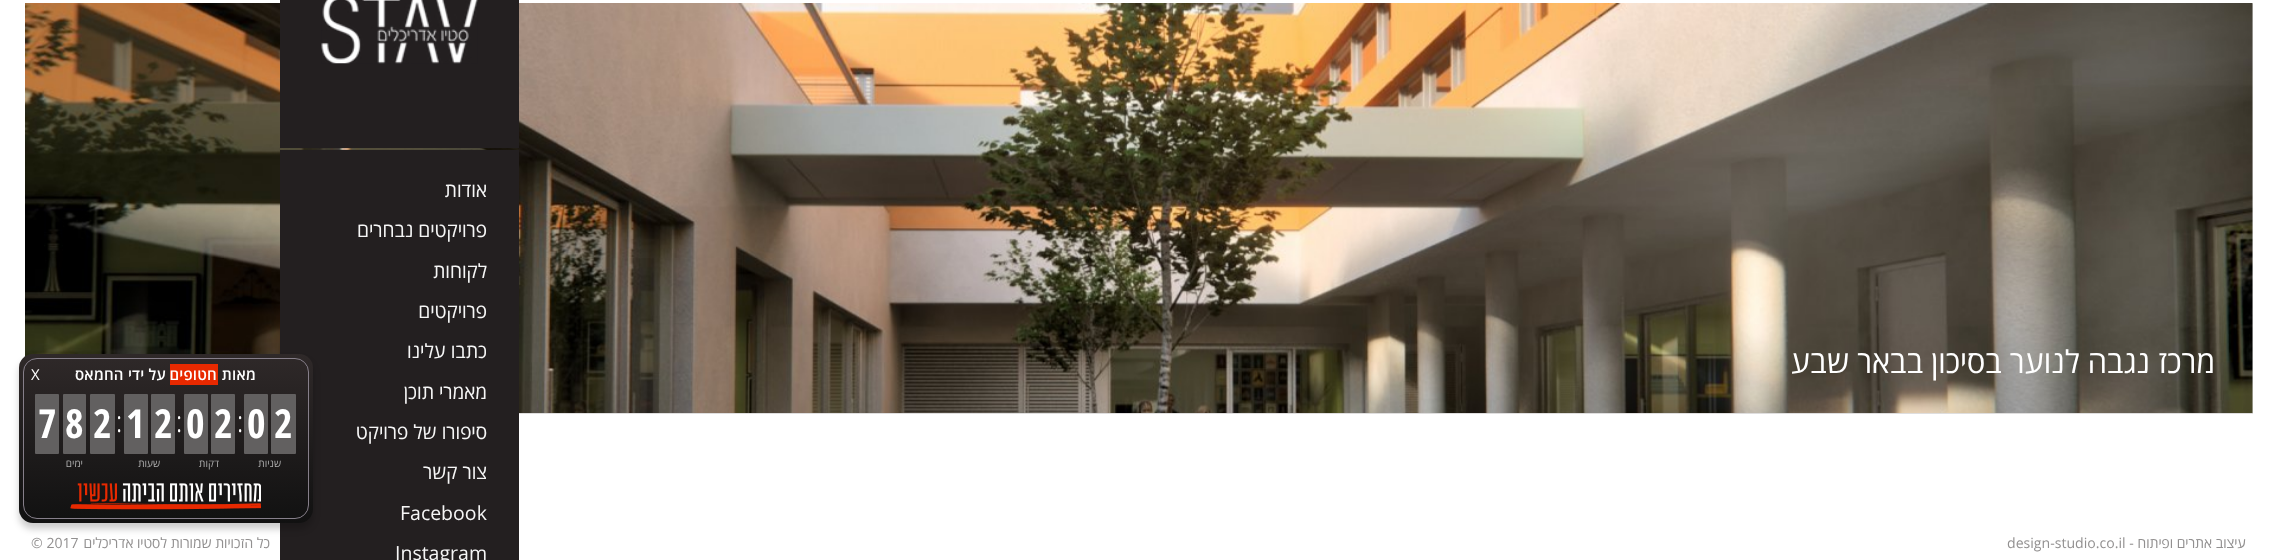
(async () => {
    const canvas = document.querySelector("canvas");
    canvas.width = 2277;
    canvas.height = 560;
    const context = canvas.getContext("2d");
    context.miterLimit = 4;
    context.fontKerning = "normal";
    function write(s, x, y, font, color) {
        context.font = font;
        context.fillStyle = color;
        context.fillText(s, x, y);
    }
    function block(x, y, w, h, color) {
        context.fillStyle = color;
        context.fillRect(x, y, w, h);
    }
    function card(x, y, w, h, r, color) {
        context.fillStyle = color;
        context.beginPath();
        context.roundRect(x, y, w, h, r);
        context.fill();
    }
    async function photo(src, x, y, w, h) {
        const img = new Image();
        img.src = src;
        await img.decode();
        context.drawImage(img, x, y, w, h);
    }
    let gradient;

    block(0, 0, 2277, 560, "rgb(255, 255, 255)");
    block(519, 4, 1734, 410, "rgb(223, 222, 222)");
    await photo("media/1.png", 25, 3, 2228, 410);
    context.direction = "rtl";
    write("מרכז", 2215, 373, "31.25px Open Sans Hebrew", "rgb(255, 255, 255)");
    write("נגבה לנוער בסיכון בבאר שבע", 2150, 373, "31.25px Open Sans Hebrew", "rgb(255, 255, 255)");
    block(280, 0, 239, 148, "rgb(35, 31, 32)");
    await photo("media/2.png", 321, 0, 157, 64);
    block(280, 150, 239, 410, "rgb(35, 31, 32)");
    write("אודות", 487, 197, "19.5px Open Sans Hebrew", "rgb(246, 246, 246)");
    write("פרויקטים נבחרים", 487, 237, "19.5px Open Sans Hebrew", "rgb(246, 246, 246)");
    write("לקוחות", 487, 278, "19.5px Open Sans Hebrew", "rgb(246, 246, 246)");
    write("פרויקטים", 487, 318, "19.5px Open Sans Hebrew", "rgb(246, 246, 246)");
    write("כתבו עלינו", 487, 358, "19.5px Open Sans Hebrew", "rgb(246, 246, 246)");
    write("מאמרי תוכן", 487, 399, "19.5px Open Sans Hebrew", "rgb(246, 246, 246)");
    write("סיפורו של פרויקט", 487, 439, "19.5px Open Sans Hebrew", "rgb(246, 246, 246)");
    write("צור קשר", 487, 479, "19.5px Open Sans Hebrew", "rgb(246, 246, 246)");
    context.direction = "ltr";
    write("Facebook", 400, 520, "19.5px Open Sans Hebrew", "rgb(246, 246, 246)");
    write("Instagram", 395, 560, "19.5px Open Sans Hebrew", "rgb(246, 246, 246)");
    context.fillStyle = "rgba(0, 0, 0, 0.2)";
    context.filter = "blur(3.5px)";
    context.beginPath();
    context.roundRect(19, 360, 294, 169, 14);
    context.fill();
    context.filter = "none";
    gradient = context.createLinearGradient(166, 354, 166, 523);
    gradient.addColorStop(0, "rgb(47, 41, 41)");
    gradient.addColorStop(1, "rgb(17, 17, 17)");
    context.fillStyle = gradient;
    context.beginPath();
    context.roundRect(19, 354, 294, 169, 14);
    context.fill();
    context.beginPath();
    context.roundRect(23.5, 358.5, 285, 160, 13.5);
    context.strokeStyle = "rgb(134, 127, 138)";
    context.stroke();
    context.letterSpacing = "0.25px";
    context.direction = "rtl";
    write("מאות", 256, 380, "600 15px Open Sans", "rgb(255, 255, 255)");
    block(170, 364, 48, 21, "rgb(232, 41, 0)");
    write("חטופים", 217, 380, "600 15px Open Sans", "rgb(255, 255, 255)");
    write("על ידי החמאס", 166, 380, "600 15px Open Sans", "rgb(255, 255, 255)");
    context.letterSpacing = "0px";
    context.direction = "ltr";
    write("X", 31, 380, "15px Open Sans", "rgb(255, 255, 255)");
    card(271, 394, 25, 60, 1, "rgb(98, 96, 96)");
    write("2", 274, 438, "bold 40px Open Sans Condensed", "rgb(255, 255, 255)");
    card(244, 394, 24, 60, 1, "rgb(98, 96, 96)");
    write("0", 247, 438, "bold 40px Open Sans Condensed", "rgb(255, 255, 255)");
    context.direction = "rtl";
    write("שניות", 281, 467, "10px Open Sans", "rgb(175, 175, 175)");
    context.direction = "ltr";
    write(":", 237, 432, "300 30px Open Sans Condensed", "rgb(255, 255, 255)");
    card(211, 394, 24, 60, 1, "rgb(98, 96, 96)");
    write("2", 214, 438, "bold 40px Open Sans Condensed", "rgb(255, 255, 255)");
    card(184, 394, 24, 60, 1, "rgb(98, 96, 96)");
    write("0", 186, 438, "bold 40px Open Sans Condensed", "rgb(255, 255, 255)");
    context.direction = "rtl";
    write("דקות", 219, 467, "10px Open Sans", "rgb(175, 175, 175)");
    context.direction = "ltr";
    write(":", 176, 432, "300 30px Open Sans Condensed", "rgb(255, 255, 255)");
    card(151, 394, 24, 60, 1, "rgb(98, 96, 96)");
    write("2", 154, 438, "bold 40px Open Sans Condensed", "rgb(255, 255, 255)");
    card(124, 394, 24, 60, 1, "rgb(98, 96, 96)");
    write("1", 126, 438, "bold 40px Open Sans Condensed", "rgb(255, 255, 255)");
    context.direction = "rtl";
    write("שעות", 160, 467, "10px Open Sans", "rgb(175, 175, 175)");
    context.direction = "ltr";
    write(":", 116, 432, "300 30px Open Sans Condensed", "rgb(255, 255, 255)");
    card(90, 394, 25, 60, 1, "rgb(98, 96, 96)");
    write("2", 93, 438, "bold 40px Open Sans Condensed", "rgb(255, 255, 255)");
    card(63, 394, 23, 60, 1, "rgb(98, 96, 96)");
    write("8", 65, 438, "bold 40px Open Sans Condensed", "rgb(255, 255, 255)");
    card(35, 394, 24, 60, 1, "rgb(98, 96, 96)");
    write("7", 38, 438, "bold 40px Open Sans Condensed", "rgb(255, 255, 255)");
    context.direction = "rtl";
    write("ימים", 83, 467, "10px Open Sans", "rgb(175, 175, 175)");
    await photo("media/3.png", 70, 483, 191, 27);
    write("עיצוב אתרים ופיתוח -", 2246, 548, "14.1px Open Sans Hebrew", "rgb(146, 144, 144)");
    context.direction = "ltr";
    write("design-studio.co.il", 2007, 548, "14.1px Open Sans Hebrew", "rgb(146, 144, 144)");
    context.direction = "rtl";
    write("כל הזכויות שמורות לסטיו אדריכלים", 270, 548, "14.1px Open Sans Hebrew", "rgb(146, 144, 144)");
    context.direction = "ltr";
    write("© 2017", 31, 548, "14.1px Open Sans Hebrew", "rgb(146, 144, 144)");
})();
